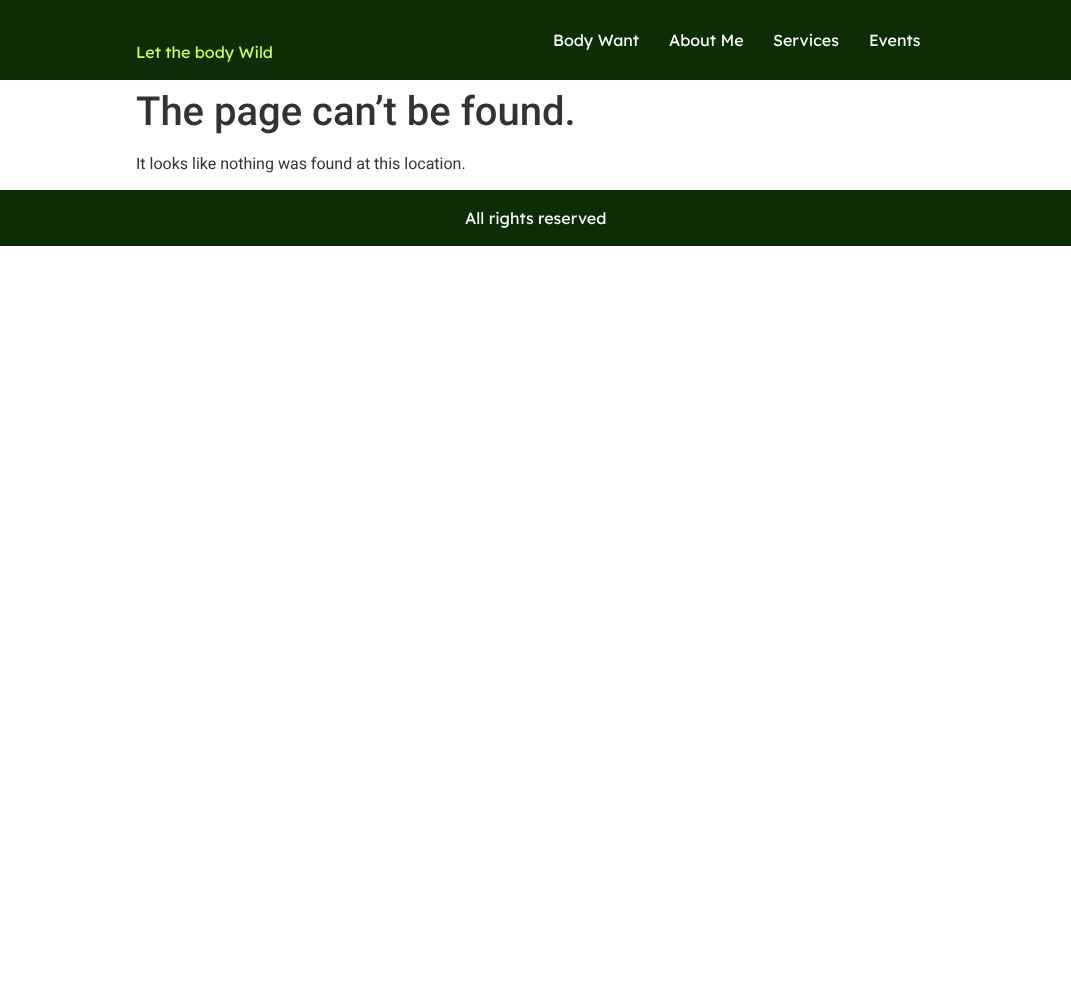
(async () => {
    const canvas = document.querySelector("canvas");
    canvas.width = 1071;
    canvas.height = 1002;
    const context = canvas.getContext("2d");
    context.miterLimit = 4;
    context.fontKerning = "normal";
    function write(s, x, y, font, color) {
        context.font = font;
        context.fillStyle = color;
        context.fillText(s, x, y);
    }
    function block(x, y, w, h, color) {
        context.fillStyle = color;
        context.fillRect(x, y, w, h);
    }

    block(0, 0, 1071, 1002, "rgb(255, 255, 255)");
    block(0, 0, 1071, 80, "rgb(12, 45, 5)");
    write("Body Want", 553, 46, "16px Lexend", "rgb(255, 255, 255)");
    write("About Me", 669, 46, "16px Lexend", "rgb(255, 255, 255)");
    write("Services", 773, 46, "16px Lexend", "rgb(255, 255, 255)");
    write("Events", 869, 46, "16px Lexend", "rgb(255, 255, 255)");
    write("Let the body Wild", 136, 58, "16px Lexend", "rgb(208, 255, 78)");
    write("The page can’t be found.", 136, 125, "500 40px Roboto", "rgb(51, 51, 51)");
    write("It looks like nothing was found at this location.", 136, 169, "16px Roboto", "rgb(51, 51, 51)");
    block(0, 190, 1071, 56, "rgb(12, 45, 5)");
    write("All rights reserved", 465, 224, "16px Lexend", "rgb(255, 255, 255)");
})();
